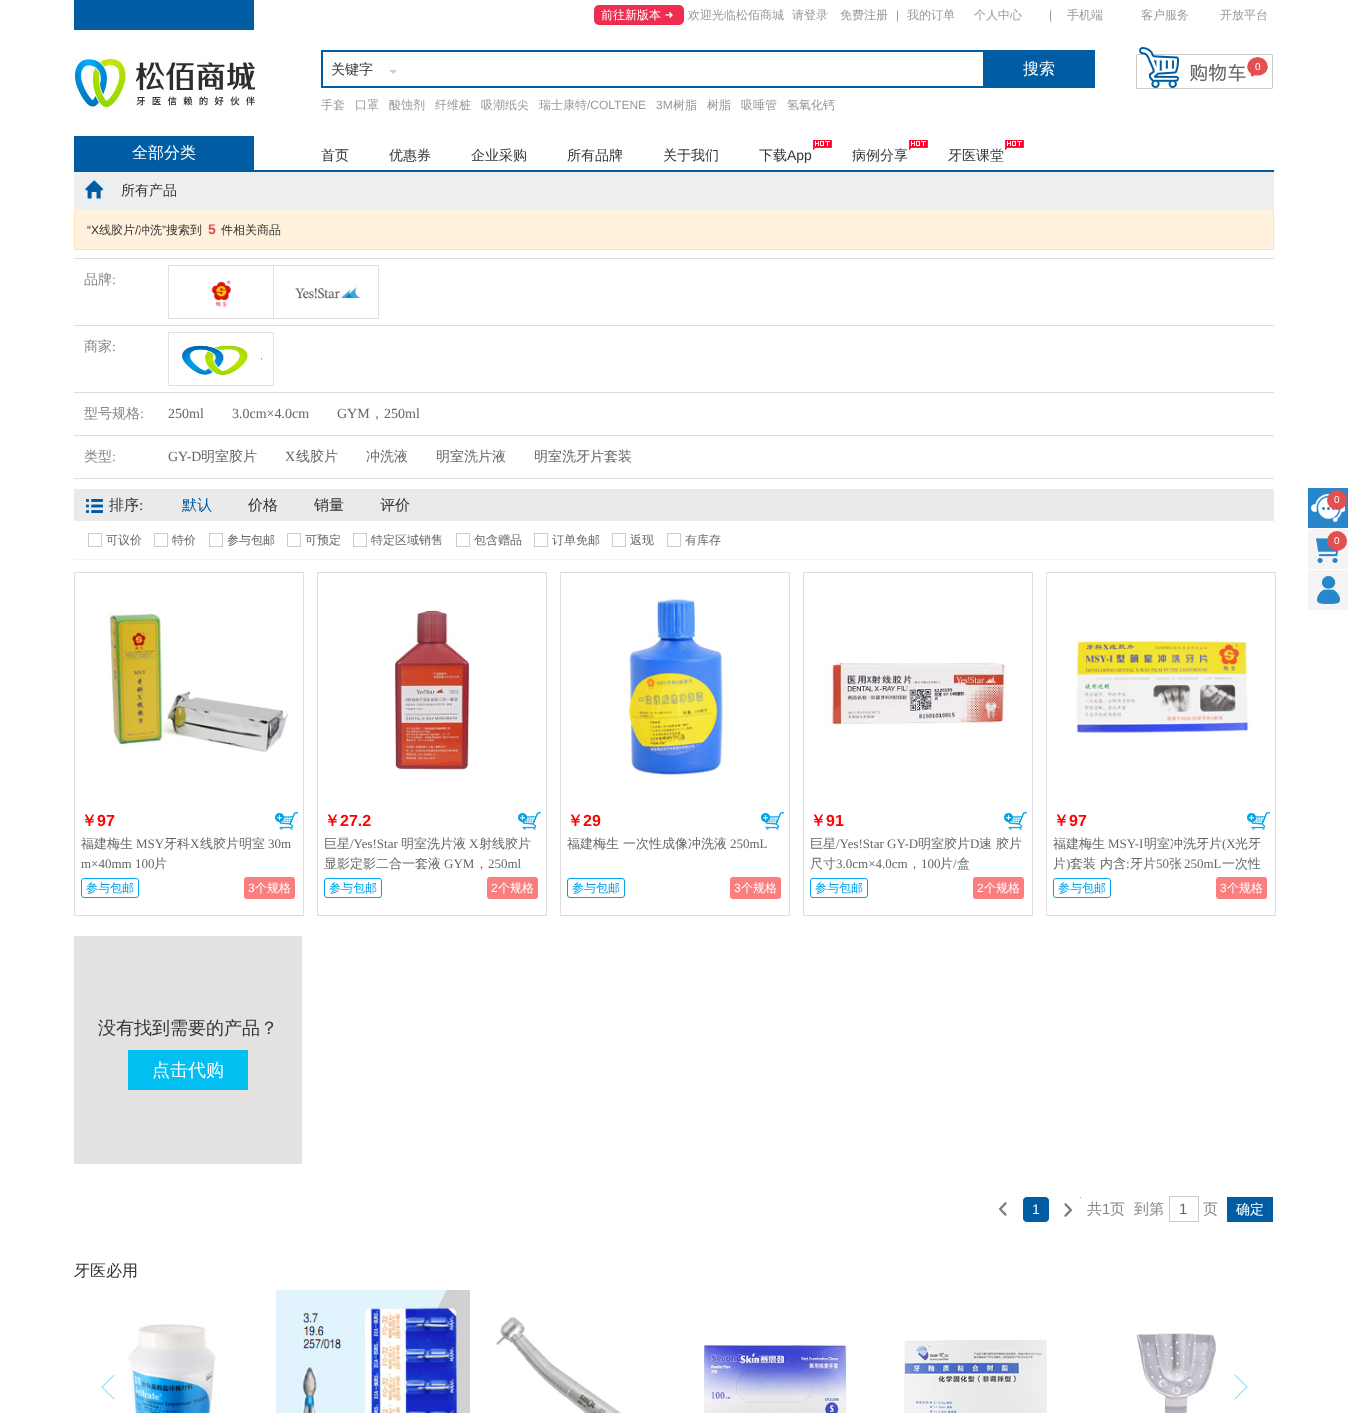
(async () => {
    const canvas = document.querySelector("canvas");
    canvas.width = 1348;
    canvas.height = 1413;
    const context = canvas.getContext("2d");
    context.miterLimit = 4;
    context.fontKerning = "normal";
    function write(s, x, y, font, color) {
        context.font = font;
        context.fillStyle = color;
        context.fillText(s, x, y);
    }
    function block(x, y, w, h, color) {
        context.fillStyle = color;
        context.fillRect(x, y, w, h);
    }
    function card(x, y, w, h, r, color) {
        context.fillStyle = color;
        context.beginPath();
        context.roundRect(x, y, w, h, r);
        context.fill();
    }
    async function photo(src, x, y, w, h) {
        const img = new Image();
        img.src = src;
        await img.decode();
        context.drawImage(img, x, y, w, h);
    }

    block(0, 0, 1348, 1413, "rgb(255, 255, 255)");
    block(74, 0, 180, 30, "rgb(0, 92, 163)");
    card(594, 5, 90, 20, 5, "rgb(237, 46, 80)");
    write("前往新版本", 601, 19, "500 12px WenQuanYi Zen Hei", "rgb(255, 255, 255)");
    await photo("media/1.png", 665, 12, 8, 6);
    write("欢迎光临松佰商城", 688, 19, "500 12px WenQuanYi Zen Hei", "rgb(153, 153, 153)");
    write("请登录", 792, 19, "500 12px WenQuanYi Zen Hei", "rgb(153, 153, 153)");
    write("免费注册", 840, 19, "500 12px WenQuanYi Zen Hei", "rgb(153, 153, 153)");
    write("|", 896, 19, "12px Liberation Sans", "rgb(153, 153, 153)");
    write("我的订单", 907, 19, "500 12px WenQuanYi Zen Hei", "rgb(153, 153, 153)");
    write("个人中心", 974, 19, "500 12px WenQuanYi Zen Hei", "rgb(153, 153, 153)");
    write("|", 1049, 19, "12px Liberation Sans", "rgb(153, 153, 153)");
    write("手机端", 1067, 19, "500 12px WenQuanYi Zen Hei", "rgb(153, 153, 153)");
    write("客户服务", 1141, 19, "500 12px WenQuanYi Zen Hei", "rgb(153, 153, 153)");
    write("开放平台", 1220, 19, "500 12px WenQuanYi Zen Hei", "rgb(153, 153, 153)");
    await photo("media/2.png", 74, 58, 181, 56);
    block(321, 50, 662, 2, "rgb(0, 92, 163)");
    block(321, 86, 662, 2, "rgb(0, 92, 163)");
    block(321, 50, 2, 38, "rgb(0, 92, 163)");
    block(983, 50, 112, 38, "rgb(0, 92, 163)");
    write("搜索", 1023, 74, "500 16px WenQuanYi Zen Hei", "rgb(255, 255, 255)");
    write("关键字", 331, 74, "500 14px WenQuanYi Zen Hei", "rgb(51, 51, 51)");
    context.fillStyle = "rgb(204, 204, 204)";
    context.beginPath();
    context.moveTo(389, 70);
    context.lineTo(397, 70);
    context.lineTo(393, 74);
    context.closePath();
    context.fill();
    write("手套", 321, 109, "500 12px WenQuanYi Zen Hei", "rgb(153, 153, 153)");
    write("口罩", 355, 109, "500 12px WenQuanYi Zen Hei", "rgb(153, 153, 153)");
    write("酸蚀剂", 389, 109, "500 12px WenQuanYi Zen Hei", "rgb(153, 153, 153)");
    write("纤维桩", 435, 109, "500 12px WenQuanYi Zen Hei", "rgb(153, 153, 153)");
    write("吸潮纸尖", 481, 109, "500 12px WenQuanYi Zen Hei", "rgb(153, 153, 153)");
    write("瑞士康特", 539, 109, "500 12px WenQuanYi Zen Hei", "rgb(153, 153, 153)");
    write("/COLTENE", 587, 109, "12px Liberation Sans", "rgb(153, 153, 153)");
    write("3M", 656, 109, "12px Liberation Sans", "rgb(153, 153, 153)");
    write("树脂", 673, 109, "500 12px WenQuanYi Zen Hei", "rgb(153, 153, 153)");
    write("树脂", 707, 109, "500 12px WenQuanYi Zen Hei", "rgb(153, 153, 153)");
    write("吸唾管", 741, 109, "500 12px WenQuanYi Zen Hei", "rgb(153, 153, 153)");
    write("氢氧化钙", 787, 109, "500 12px WenQuanYi Zen Hei", "rgb(153, 153, 153)");
    await photo("media/3.png", 1136, 47, 137, 42);
    await photo("media/4.png", 1247, 57, 21, 20);
    write("0", 1255, 70, "10px Liberation Sans", "rgb(255, 255, 255)");
    block(74, 136, 180, 34, "rgb(0, 92, 163)");
    write("全部分类", 132, 158, "500 16px WenQuanYi Zen Hei", "rgb(255, 255, 255)");
    write("首页", 321, 160, "500 14px WenQuanYi Zen Hei", "rgb(51, 51, 51)");
    write("优惠券", 389, 160, "500 14px WenQuanYi Zen Hei", "rgb(51, 51, 51)");
    write("企业采购", 471, 160, "500 14px WenQuanYi Zen Hei", "rgb(51, 51, 51)");
    write("所有品牌", 567, 160, "500 14px WenQuanYi Zen Hei", "rgb(51, 51, 51)");
    write("关于我们", 663, 160, "500 14px WenQuanYi Zen Hei", "rgb(51, 51, 51)");
    await photo("media/5.png", 813, 140, 19, 10);
    write("下载", 759, 160, "500 14px WenQuanYi Zen Hei", "rgb(51, 51, 51)");
    write("App", 787, 160, "14px Liberation Sans", "rgb(51, 51, 51)");
    await photo("media/5.png", 909, 140, 19, 10);
    write("病例分享", 852, 160, "500 14px WenQuanYi Zen Hei", "rgb(51, 51, 51)");
    await photo("media/5.png", 1005, 140, 19, 10);
    write("牙医课堂", 948, 160, "500 14px WenQuanYi Zen Hei", "rgb(51, 51, 51)");
    block(74, 172, 1200, 38, "rgb(237, 238, 239)");
    block(74, 170, 1200, 2, "rgb(0, 92, 163)");
    await photo("media/6.png", 85, 180, 19, 19);
    write("所有产品", 121, 195, "500 14px WenQuanYi Zen Hei", "rgb(51, 51, 51)");
    block(74, 258, 1200, 1, "rgb(222, 222, 222)");
    block(75, 210, 1198, 39, "rgb(255, 241, 220)");
    block(1273, 210, 1, 40, "rgb(255, 227, 184)");
    block(74, 249, 1200, 1, "rgb(255, 227, 184)");
    block(74, 210, 1, 40, "rgb(255, 227, 184)");
    write("“X", 87, 234, "12px Liberation Sans", "rgb(51, 51, 51)");
    write("线胶片", 99, 234, "500 12px WenQuanYi Zen Hei", "rgb(51, 51, 51)");
    write("/", 135, 234, "12px Liberation Sans", "rgb(51, 51, 51)");
    write("冲洗", 138, 234, "500 12px WenQuanYi Zen Hei", "rgb(51, 51, 51)");
    write("”", 162, 234, "12px Liberation Sans", "rgb(51, 51, 51)");
    write("搜索到", 166, 234, "500 12px WenQuanYi Zen Hei", "rgb(51, 51, 51)");
    write("5", 208, 234, "bold 14px Liberation Sans", "rgb(226, 80, 80)");
    write("件相关商品", 221, 234, "500 12px WenQuanYi Zen Hei", "rgb(51, 51, 51)");
    block(74, 325, 1200, 1, "rgb(222, 222, 222)");
    write("品牌", 84, 284, "500 14px WenQuanYi Zen Hei", "rgb(136, 136, 136)");
    write(":", 112, 284, "14px Liberation Serif", "rgb(136, 136, 136)");
    context.strokeStyle = "rgb(225, 225, 225)";
    context.strokeRect(168.5, 265.5, 105, 53);
    await photo("media/7.png", 211, 280, 20, 27);
    context.strokeRect(273.5, 265.5, 105, 53);
    await photo("media/8.png", 295, 287, 66, 12);
    block(74, 392, 1200, 1, "rgb(222, 222, 222)");
    write("商家", 84, 351, "500 14px WenQuanYi Zen Hei", "rgb(136, 136, 136)");
    write(":", 112, 351, "14px Liberation Serif", "rgb(136, 136, 136)");
    context.strokeRect(168.5, 332.5, 105, 53);
    await photo("media/9.png", 182, 345, 80, 30);
    block(74, 435, 1200, 1, "rgb(222, 222, 222)");
    write("型号规格", 84, 418, "500 14px WenQuanYi Zen Hei", "rgb(136, 136, 136)");
    write(":", 140, 418, "14px Liberation Serif", "rgb(136, 136, 136)");
    write("250ml", 168, 418, "14px Liberation Serif", "rgb(102, 102, 102)");
    write("3.0cm×4.0cm", 232, 418, "14px Liberation Serif", "rgb(102, 102, 102)");
    write("GYM", 337, 418, "14px Liberation Serif", "rgb(102, 102, 102)");
    write("，", 370, 418, "500 14px WenQuanYi Zen Hei", "rgb(102, 102, 102)");
    write("250ml", 384, 418, "14px Liberation Serif", "rgb(102, 102, 102)");
    block(74, 478, 1200, 1, "rgb(222, 222, 222)");
    write("类型", 84, 461, "500 14px WenQuanYi Zen Hei", "rgb(136, 136, 136)");
    write(":", 112, 461, "14px Liberation Serif", "rgb(136, 136, 136)");
    write("GY-D", 168, 461, "14px Liberation Serif", "rgb(102, 102, 102)");
    write("明室胶片", 201, 461, "500 14px WenQuanYi Zen Hei", "rgb(102, 102, 102)");
    write("X", 285, 461, "14px Liberation Serif", "rgb(102, 102, 102)");
    write("线胶片", 296, 461, "500 14px WenQuanYi Zen Hei", "rgb(102, 102, 102)");
    write("冲洗液", 366, 461, "500 14px WenQuanYi Zen Hei", "rgb(102, 102, 102)");
    write("明室洗片液", 436, 461, "500 14px WenQuanYi Zen Hei", "rgb(102, 102, 102)");
    write("明室洗牙片套装", 534, 461, "500 14px WenQuanYi Zen Hei", "rgb(102, 102, 102)");
    block(74, 489, 1200, 32, "rgb(234, 234, 234)");
    await photo("media/10.png", 86, 499, 17, 14);
    write("排序", 109, 510, "500 15px WenQuanYi Zen Hei", "rgb(51, 51, 51)");
    write(":", 139, 510, "15px Liberation Serif", "rgb(51, 51, 51)");
    write("默认", 182, 510, "500 15px WenQuanYi Zen Hei", "rgb(0, 92, 163)");
    write("价格", 248, 510, "500 15px WenQuanYi Zen Hei", "rgb(51, 51, 51)");
    write("销量", 314, 510, "500 15px WenQuanYi Zen Hei", "rgb(51, 51, 51)");
    write("评价", 380, 510, "500 15px WenQuanYi Zen Hei", "rgb(51, 51, 51)");
    block(74, 559, 1200, 1, "rgb(245, 245, 245)");
    context.strokeStyle = "rgb(204, 204, 204)";
    context.strokeRect(88.5, 533.5, 13, 13);
    write("可议价", 106, 544, "500 12px WenQuanYi Zen Hei", "rgb(102, 102, 102)");
    context.strokeRect(154.5, 533.5, 13, 13);
    write("特价", 172, 544, "500 12px WenQuanYi Zen Hei", "rgb(102, 102, 102)");
    context.strokeRect(209.5, 533.5, 13, 13);
    write("参与包邮", 227, 544, "500 12px WenQuanYi Zen Hei", "rgb(102, 102, 102)");
    context.strokeRect(287.5, 533.5, 13, 13);
    write("可预定", 305, 544, "500 12px WenQuanYi Zen Hei", "rgb(102, 102, 102)");
    context.strokeRect(353.5, 533.5, 13, 13);
    write("特定区域销售", 371, 544, "500 12px WenQuanYi Zen Hei", "rgb(102, 102, 102)");
    context.strokeRect(456.5, 533.5, 13, 13);
    write("包含赠品", 474, 544, "500 12px WenQuanYi Zen Hei", "rgb(102, 102, 102)");
    context.strokeRect(534.5, 533.5, 13, 13);
    write("订单免邮", 552, 544, "500 12px WenQuanYi Zen Hei", "rgb(102, 102, 102)");
    context.strokeRect(612.5, 533.5, 13, 13);
    write("返现", 630, 544, "500 12px WenQuanYi Zen Hei", "rgb(102, 102, 102)");
    context.strokeRect(667.5, 533.5, 13, 13);
    write("有库存", 685, 544, "500 12px WenQuanYi Zen Hei", "rgb(102, 102, 102)");
    context.strokeStyle = "rgb(222, 222, 222)";
    context.strokeRect(74.5, 572.5, 229, 343);
    await photo("media/11.png", 107, 611, 182, 141);
    write("￥", 81, 826, "bold 16px WenQuanYi Zen Hei", "rgb(255, 0, 0)");
    write("97", 97, 826, "bold 16px Liberation Sans", "rgb(255, 0, 0)");
    await photo("media/12.png", 275, 812, 23, 18);
    write("福建梅生", 81, 848, "500 13px WenQuanYi Zen Hei", "rgb(102, 102, 102)");
    write("MSY", 136, 848, "13px Liberation Serif", "rgb(102, 102, 102)");
    write("牙科", 164, 848, "500 13px WenQuanYi Zen Hei", "rgb(102, 102, 102)");
    write("X", 190, 848, "13px Liberation Serif", "rgb(102, 102, 102)");
    write("线胶片明室", 200, 848, "500 13px WenQuanYi Zen Hei", "rgb(102, 102, 102)");
    write("30m", 268, 848, "13px Liberation Serif", "rgb(102, 102, 102)");
    write("m×40mm 100", 81, 868, "13px Liberation Serif", "rgb(102, 102, 102)");
    write("片", 154, 868, "500 13px WenQuanYi Zen Hei", "rgb(102, 102, 102)");
    context.beginPath();
    context.roundRect(81.5, 878.5, 57, 19, 2.5);
    context.strokeStyle = "rgb(0, 161, 233)";
    context.stroke();
    write("参与包邮", 86, 892, "500 12px WenQuanYi Zen Hei", "rgb(0, 161, 233)");
    card(244, 877, 51, 22, 3, "rgb(250, 126, 126)");
    write("3", 248, 892, "12px Liberation Sans", "rgb(255, 255, 255)");
    write("个规格", 255, 892, "500 12px WenQuanYi Zen Hei", "rgb(255, 255, 255)");
    context.strokeStyle = "rgb(222, 222, 222)";
    context.strokeRect(317.5, 572.5, 229, 343);
    await photo("media/13.png", 394, 610, 76, 161);
    write("￥", 324, 826, "bold 16px WenQuanYi Zen Hei", "rgb(255, 0, 0)");
    write("27.2", 340, 826, "bold 16px Liberation Sans", "rgb(255, 0, 0)");
    await photo("media/12.png", 518, 812, 23, 18);
    write("巨星", 324, 848, "500 13px WenQuanYi Zen Hei", "rgb(102, 102, 102)");
    write("/Yes!Star", 350, 848, "13px Liberation Serif", "rgb(102, 102, 102)");
    write("明室洗片液", 401, 848, "500 13px WenQuanYi Zen Hei", "rgb(102, 102, 102)");
    write("X", 469, 848, "13px Liberation Serif", "rgb(102, 102, 102)");
    write("射线胶片", 479, 848, "500 13px WenQuanYi Zen Hei", "rgb(102, 102, 102)");
    write("显影定影二合一套液", 324, 868, "500 13px WenQuanYi Zen Hei", "rgb(102, 102, 102)");
    write("GYM", 444, 868, "13px Liberation Serif", "rgb(102, 102, 102)");
    write("，", 475, 868, "500 13px WenQuanYi Zen Hei", "rgb(102, 102, 102)");
    write("250ml", 488, 868, "13px Liberation Serif", "rgb(102, 102, 102)");
    context.beginPath();
    context.roundRect(324.5, 878.5, 57, 19, 2.5);
    context.strokeStyle = "rgb(0, 161, 233)";
    context.stroke();
    write("参与包邮", 329, 892, "500 12px WenQuanYi Zen Hei", "rgb(0, 161, 233)");
    card(487, 877, 51, 22, 3, "rgb(250, 126, 126)");
    write("2", 491, 892, "12px Liberation Sans", "rgb(255, 255, 255)");
    write("个规格", 498, 892, "500 12px WenQuanYi Zen Hei", "rgb(255, 255, 255)");
    context.strokeStyle = "rgb(222, 222, 222)";
    context.strokeRect(560.5, 572.5, 229, 343);
    await photo("media/14.png", 628, 597, 95, 180);
    write("￥", 567, 826, "bold 16px WenQuanYi Zen Hei", "rgb(255, 0, 0)");
    write("29", 583, 826, "bold 16px Liberation Sans", "rgb(255, 0, 0)");
    await photo("media/12.png", 761, 812, 23, 18);
    write("福建梅生 一次性成像冲洗液", 567, 848, "500 13px WenQuanYi Zen Hei", "rgb(102, 102, 102)");
    write("250mL", 730, 848, "13px Liberation Serif", "rgb(102, 102, 102)");
    context.beginPath();
    context.roundRect(567.5, 878.5, 57, 19, 2.5);
    context.strokeStyle = "rgb(0, 161, 233)";
    context.stroke();
    write("参与包邮", 572, 892, "500 12px WenQuanYi Zen Hei", "rgb(0, 161, 233)");
    card(730, 877, 51, 22, 3, "rgb(250, 126, 126)");
    write("3", 734, 892, "12px Liberation Sans", "rgb(255, 255, 255)");
    write("个规格", 741, 892, "500 12px WenQuanYi Zen Hei", "rgb(255, 255, 255)");
    context.strokeStyle = "rgb(222, 222, 222)";
    context.strokeRect(803.5, 572.5, 229, 343);
    await photo("media/15.png", 825, 659, 184, 67);
    write("￥", 810, 826, "bold 16px WenQuanYi Zen Hei", "rgb(255, 0, 0)");
    write("91", 826, 826, "bold 16px Liberation Sans", "rgb(255, 0, 0)");
    await photo("media/12.png", 1004, 812, 23, 18);
    write("巨星", 810, 848, "500 13px WenQuanYi Zen Hei", "rgb(102, 102, 102)");
    write("/Yes!Star GY-D", 836, 848, "13px Liberation Serif", "rgb(102, 102, 102)");
    write("明室胶片", 918, 848, "500 13px WenQuanYi Zen Hei", "rgb(102, 102, 102)");
    write("D", 970, 848, "13px Liberation Serif", "rgb(102, 102, 102)");
    write("速", 979, 848, "500 13px WenQuanYi Zen Hei", "rgb(102, 102, 102)");
    write("胶片", 996, 848, "500 13px WenQuanYi Zen Hei", "rgb(102, 102, 102)");
    write("尺寸", 810, 868, "500 13px WenQuanYi Zen Hei", "rgb(102, 102, 102)");
    write("3.0cm×4.0cm", 836, 868, "13px Liberation Serif", "rgb(102, 102, 102)");
    write("100", 921, 868, "13px Liberation Serif", "rgb(102, 102, 102)");
    write("片 盒", 940, 868, "500 13px WenQuanYi Zen Hei", "rgb(102, 102, 102)");
    write("，", 908, 868, "500 13px WenQuanYi Zen Hei", "rgb(102, 102, 102)");
    write("/", 953, 868, "13px Liberation Serif", "rgb(102, 102, 102)");
    context.beginPath();
    context.roundRect(810.5, 878.5, 57, 19, 2.5);
    context.strokeStyle = "rgb(0, 161, 233)";
    context.stroke();
    write("参与包邮", 815, 892, "500 12px WenQuanYi Zen Hei", "rgb(0, 161, 233)");
    card(973, 877, 51, 22, 3, "rgb(250, 126, 126)");
    write("2", 977, 892, "12px Liberation Sans", "rgb(255, 255, 255)");
    write("个规格", 984, 892, "500 12px WenQuanYi Zen Hei", "rgb(255, 255, 255)");
    context.strokeStyle = "rgb(222, 222, 222)";
    context.strokeRect(1046.5, 572.5, 229, 343);
    await photo("media/16.png", 1076, 641, 176, 92);
    write("￥", 1053, 826, "bold 16px WenQuanYi Zen Hei", "rgb(255, 0, 0)");
    write("97", 1069, 826, "bold 16px Liberation Sans", "rgb(255, 0, 0)");
    await photo("media/12.png", 1247, 812, 23, 18);
    write("福建梅生", 1053, 848, "500 13px WenQuanYi Zen Hei", "rgb(102, 102, 102)");
    write("MSY-I", 1108, 848, "13px Liberation Serif", "rgb(102, 102, 102)");
    write("明室冲洗牙片", 1144, 848, "500 13px WenQuanYi Zen Hei", "rgb(102, 102, 102)");
    write("(X", 1222, 848, "13px Liberation Serif", "rgb(102, 102, 102)");
    write("光牙", 1235, 848, "500 13px WenQuanYi Zen Hei", "rgb(102, 102, 102)");
    write("片", 1053, 868, "500 13px WenQuanYi Zen Hei", "rgb(102, 102, 102)");
    write(")", 1066, 868, "13px Liberation Serif", "rgb(102, 102, 102)");
    write("套装 内含", 1070, 868, "500 13px WenQuanYi Zen Hei", "rgb(102, 102, 102)");
    write(":", 1126, 868, "13px Liberation Serif", "rgb(102, 102, 102)");
    write("牙片", 1130, 868, "500 13px WenQuanYi Zen Hei", "rgb(102, 102, 102)");
    write("50", 1156, 868, "13px Liberation Serif", "rgb(102, 102, 102)");
    write("张", 1169, 868, "500 13px WenQuanYi Zen Hei", "rgb(102, 102, 102)");
    write("250mL", 1184, 868, "13px Liberation Serif", "rgb(102, 102, 102)");
    write("一次性", 1222, 868, "500 13px WenQuanYi Zen Hei", "rgb(102, 102, 102)");
    context.beginPath();
    context.roundRect(1053.5, 878.5, 57, 19, 2.5);
    context.strokeStyle = "rgb(0, 161, 233)";
    context.stroke();
    write("参与包邮", 1058, 892, "500 12px WenQuanYi Zen Hei", "rgb(0, 161, 233)");
    card(1216, 877, 51, 22, 3, "rgb(250, 126, 126)");
    write("3", 1220, 892, "12px Liberation Sans", "rgb(255, 255, 255)");
    write("个规格", 1227, 892, "500 12px WenQuanYi Zen Hei", "rgb(255, 255, 255)");
    block(74, 936, 228, 228, "rgb(227, 226, 225)");
    write("没有找到需要的产品？", 98, 1034, "500 18px WenQuanYi Zen Hei", "rgb(51, 51, 51)");
    block(128, 1050, 120, 40, "rgb(1, 191, 241)");
    write("点击代购", 152, 1076, "500 18px WenQuanYi Zen Hei", "rgb(255, 255, 255)");
    await photo("media/17.png", 999, 1202, 8, 14);
    context.fillStyle = "rgb(0, 92, 163)";
    context.beginPath();
    context.roundRect(1022.5, 1196.5, 27, 26, 4.5);
    context.fill();
    context.strokeStyle = "rgb(255, 255, 255)";
    context.stroke();
    write("1", 1032, 1214, "14px Liberation Sans", "rgb(255, 255, 255)");
    await photo("media/18.png", 1064, 1197, 17, 20);
    context.beginPath();
    context.roundRect(1054.5, 1196.5, 27, 26, 4.5);
    context.stroke();
    write("共", 1087, 1214, "500 15px WenQuanYi Zen Hei", "rgb(136, 136, 136)");
    write("1", 1102, 1214, "15px Liberation Sans", "rgb(136, 136, 136)");
    write("页", 1110, 1214, "500 15px WenQuanYi Zen Hei", "rgb(136, 136, 136)");
    write("到第", 1134, 1214, "500 15px WenQuanYi Zen Hei", "rgb(136, 136, 136)");
    context.strokeStyle = "rgb(204, 204, 204)";
    context.strokeRect(1169.5, 1196.5, 29, 25);
    write("1", 1179, 1214, "15px Liberation Sans", "rgb(102, 102, 102)");
    write("页", 1203, 1214, "500 15px WenQuanYi Zen Hei", "rgb(136, 136, 136)");
    block(1227, 1197, 46, 25, "rgb(0, 92, 163)");
    write("确定", 1236, 1214, "500 14px WenQuanYi Zen Hei", "rgb(255, 255, 255)");
    write("牙医必用", 74, 1276, "500 16px WenQuanYi Zen Hei", "rgb(51, 51, 51)");
    await photo("media/19.png", 101, 1374, 14, 26);
    await photo("media/20.png", 128, 1324, 88, 89);
    await photo("media/21.png", 276, 1290, 194, 123);
    await photo("media/22.png", 496, 1317, 125, 96);
    await photo("media/23.png", 704, 1342, 143, 71);
    await photo("media/24.png", 904, 1340, 143, 73);
    await photo("media/25.png", 1135, 1333, 81, 80);
    await photo("media/26.png", 1234, 1374, 14, 26);
    block(1308, 488, 40, 40, "rgb(39, 135, 202)");
    await photo("media/27.png", 1311, 494, 34, 28);
    context.fillStyle = "rgb(226, 80, 80)";
    context.beginPath();
    context.arc(1337, 500, 10, 0, Math.PI * 2);
    context.fill();
    write("0", 1334, 503, "10px Liberation Sans", "rgb(255, 255, 255)");
    block(1308, 529, 40, 40, "rgb(244, 244, 244)");
    await photo("media/28.png", 1316, 538, 23, 25);
    context.fillStyle = "rgb(226, 80, 80)";
    context.beginPath();
    context.arc(1337, 541, 10, 0, Math.PI * 2);
    context.fill();
    write("0", 1334, 544, "10px Liberation Sans", "rgb(255, 255, 255)");
    block(1308, 570, 40, 40, "rgb(244, 244, 244)");
    await photo("media/29.png", 1317, 576, 23, 28);
})();
